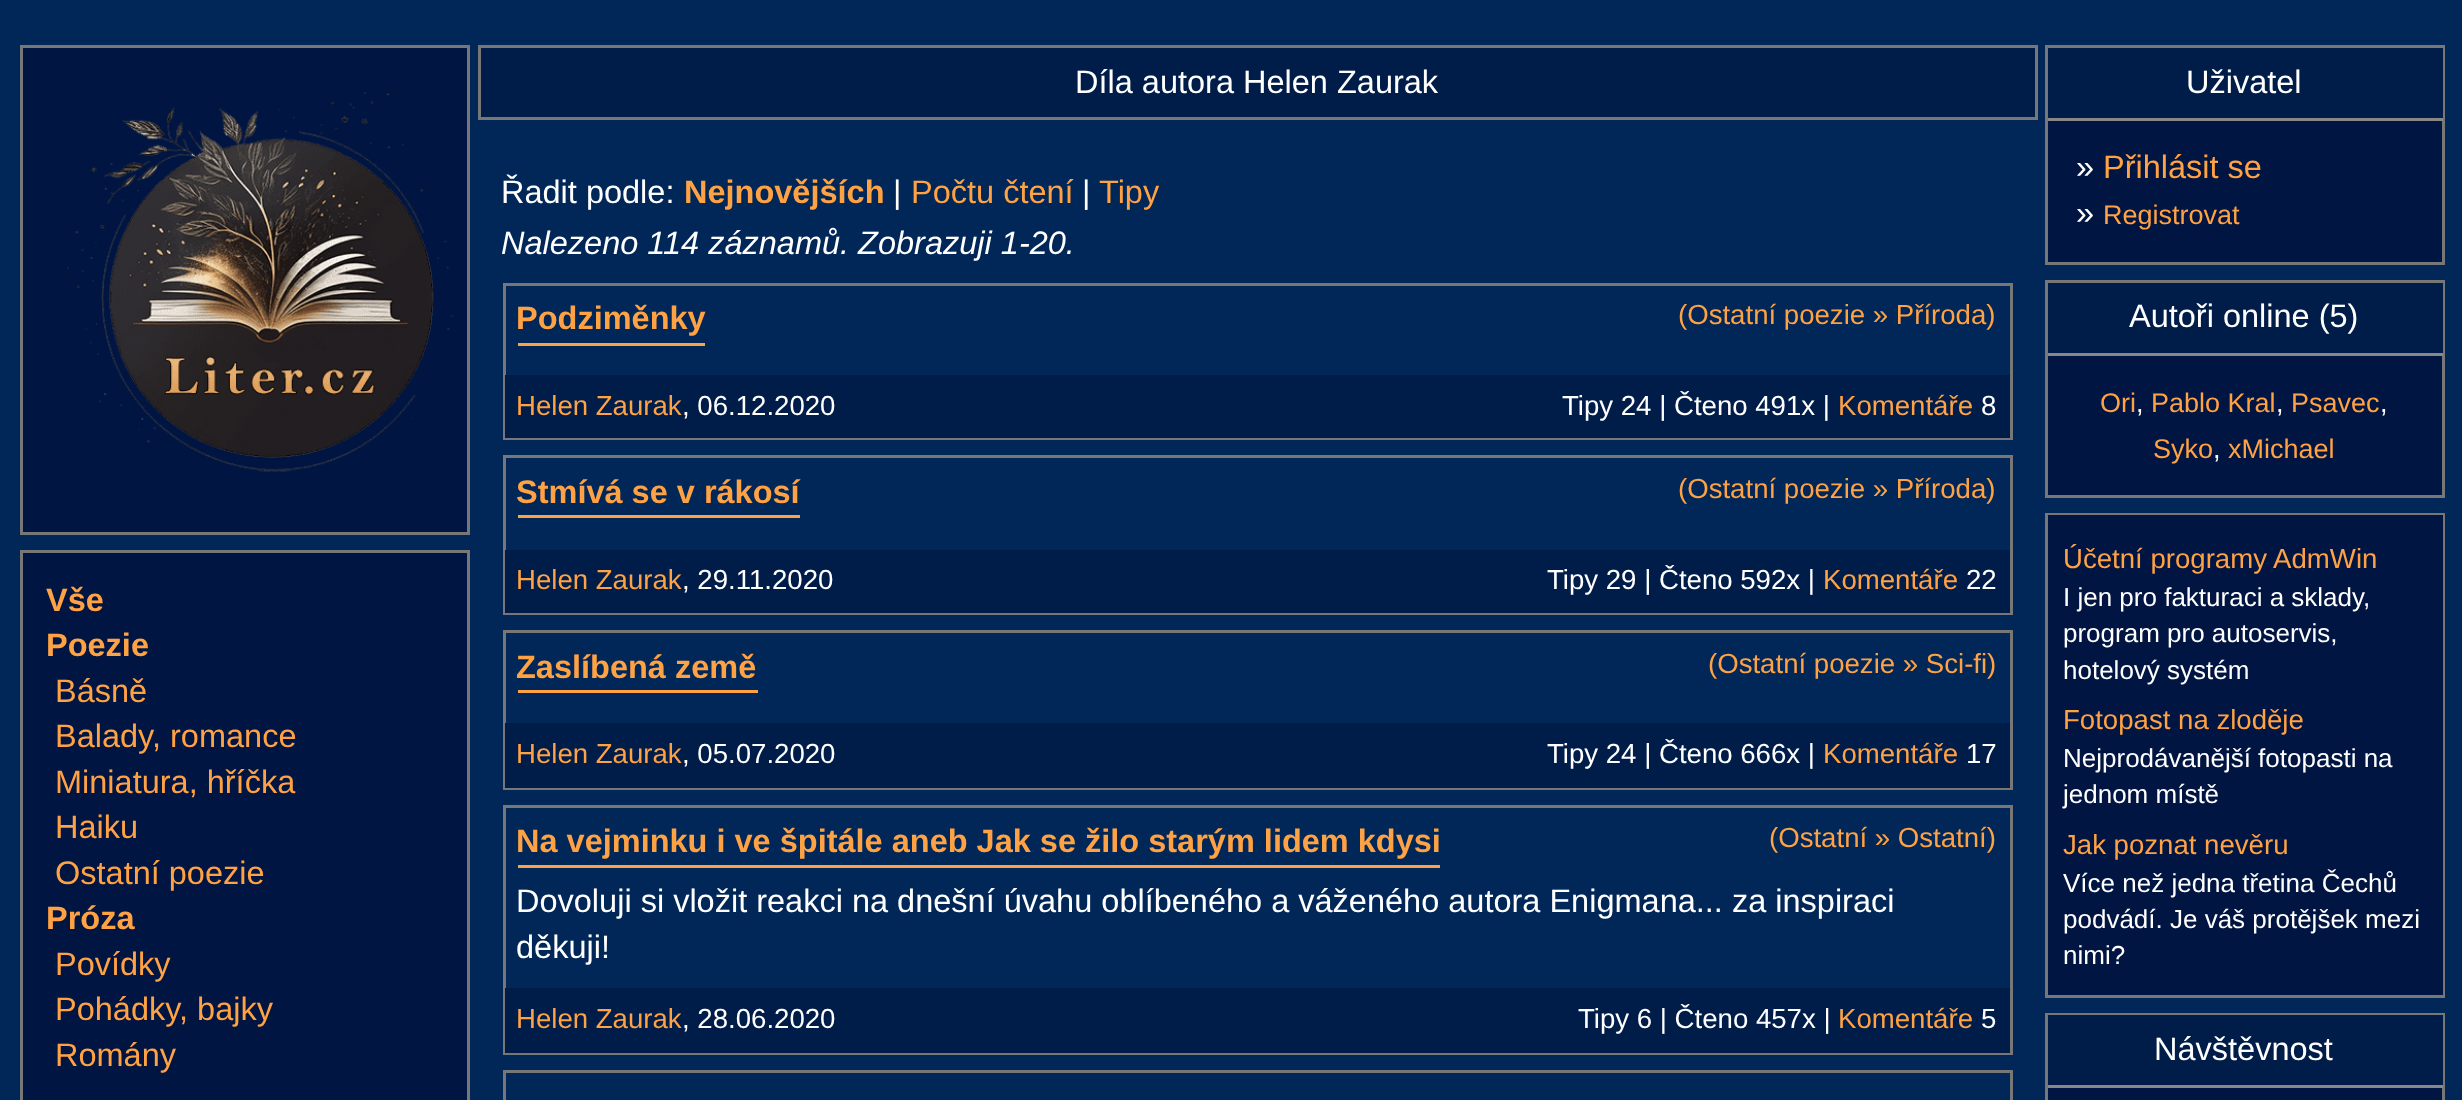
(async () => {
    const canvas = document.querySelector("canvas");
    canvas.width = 2462;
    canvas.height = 1100;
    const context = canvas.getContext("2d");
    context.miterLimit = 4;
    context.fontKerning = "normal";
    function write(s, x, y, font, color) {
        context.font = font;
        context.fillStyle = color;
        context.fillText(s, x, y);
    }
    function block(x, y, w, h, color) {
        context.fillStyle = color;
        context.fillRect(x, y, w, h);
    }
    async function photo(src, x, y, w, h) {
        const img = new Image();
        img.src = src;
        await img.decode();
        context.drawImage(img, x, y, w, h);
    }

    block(0, 0, 2462, 1100, "rgb(0, 39, 87)");
    context.fillStyle = "rgb(0, 21, 65)";
    context.beginPath();
    context.rect(21.5, 46.5, 447, 487);
    context.fill();
    context.strokeStyle = "rgb(119, 119, 119)";
    context.lineWidth = 3;
    context.stroke();
    await photo("media/1.png", 67, 92, 386, 380);
    context.beginPath();
    context.rect(21.5, 551.5, 447, 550);
    context.fill();
    context.stroke();
    write("Vše", 46, 611, "bold 32.5px Liberation Sans", "rgb(255, 162, 68)");
    write("Poezie", 46, 656, "bold 32.5px Liberation Sans", "rgb(255, 162, 68)");
    write("Básně", 55, 702, "32.5px Liberation Sans", "rgb(255, 162, 68)");
    write("Balady, romance", 55, 747, "32.5px Liberation Sans", "rgb(255, 162, 68)");
    write("Miniatura, hříčka", 55, 793, "32.5px Liberation Sans", "rgb(255, 162, 68)");
    write("Haiku", 55, 838, "32.5px Liberation Sans", "rgb(255, 162, 68)");
    write("Ostatní poezie", 55, 884, "32.5px Liberation Sans", "rgb(255, 162, 68)");
    write("Próza", 46, 929, "bold 32.5px Liberation Sans", "rgb(255, 162, 68)");
    write("Povídky", 55, 975, "32.5px Liberation Sans", "rgb(255, 162, 68)");
    write("Pohádky, bajky", 55, 1020, "32.5px Liberation Sans", "rgb(255, 162, 68)");
    write("Romány", 55, 1066, "32.5px Liberation Sans", "rgb(255, 162, 68)");
    context.fillStyle = "rgb(0, 29, 73)";
    context.beginPath();
    context.rect(479.5, 46.5, 1557, 72);
    context.fill();
    context.stroke();
    write("Díla autora Helen Zaurak", 1075, 93, "32.5px Liberation Sans", "rgb(255, 255, 255)");
    write("Řadit podle:", 501, 203, "32.5px Liberation Sans", "rgb(255, 255, 255)");
    write("Nejnovějších", 684, 203, "bold 32.5px Liberation Sans", "rgb(255, 162, 68)");
    write("|", 893, 203, "32.5px Liberation Sans", "rgb(255, 255, 255)");
    write("Počtu čtení", 911, 203, "32.5px Liberation Sans", "rgb(255, 162, 68)");
    write("|", 1082, 203, "32.5px Liberation Sans", "rgb(255, 255, 255)");
    write("Tipy", 1099, 203, "32.5px Liberation Sans", "rgb(255, 162, 68)");
    write("Nalezeno 114 záznamů. Zobrazuji 1-20.", 501, 254, "italic 32.5px Liberation Sans", "rgb(255, 255, 255)");
    context.strokeRect(504.5, 284.5, 1507, 154);
    write("Podziměnky", 516, 329, "bold 32.5px Liberation Sans", "rgb(255, 162, 68)");
    block(518, 343, 187, 3, "rgb(255, 162, 68)");
    write("(Ostatní poezie » Příroda)", 1678, 324, "27.6px Liberation Sans", "rgb(255, 162, 68)");
    block(505, 375, 1505, 63, "rgb(0, 29, 73)");
    write("Helen Zaurak", 516, 415, "27.6px Liberation Sans", "rgb(255, 162, 68)");
    write(", 06.12.2020", 682, 415, "27.6px Liberation Sans", "rgb(255, 255, 255)");
    write("Tipy 24 | Čteno 491x |", 1562, 415, "27.6px Liberation Sans", "rgb(255, 255, 255)");
    write("Komentáře", 1838, 415, "27.6px Liberation Sans", "rgb(255, 162, 68)");
    write("8", 1981, 415, "27.6px Liberation Sans", "rgb(255, 255, 255)");
    context.strokeRect(504.5, 456.5, 1507, 157);
    write("Stmívá se v rákosí", 516, 503, "bold 32.5px Liberation Sans", "rgb(255, 162, 68)");
    block(518, 515, 282, 3, "rgb(255, 162, 68)");
    write("(Ostatní poezie » Příroda)", 1678, 498, "27.6px Liberation Sans", "rgb(255, 162, 68)");
    block(505, 550, 1505, 63, "rgb(0, 29, 73)");
    write("Helen Zaurak", 516, 589, "27.6px Liberation Sans", "rgb(255, 162, 68)");
    write(", 29.11.2020", 682, 589, "27.6px Liberation Sans", "rgb(255, 255, 255)");
    write("Tipy 29 | Čteno 592x |", 1547, 589, "27.6px Liberation Sans", "rgb(255, 255, 255)");
    write("Komentáře", 1823, 589, "27.6px Liberation Sans", "rgb(255, 162, 68)");
    write("22", 1966, 589, "27.6px Liberation Sans", "rgb(255, 255, 255)");
    context.strokeRect(504.5, 631.5, 1507, 157);
    write("Zaslíbená země", 516, 678, "bold 32.5px Liberation Sans", "rgb(255, 162, 68)");
    block(518, 690, 240, 3, "rgb(255, 162, 68)");
    write("(Ostatní poezie » Sci-fi)", 1708, 673, "27.6px Liberation Sans", "rgb(255, 162, 68)");
    block(505, 723, 1505, 65, "rgb(0, 29, 73)");
    write("Helen Zaurak", 516, 763, "27.6px Liberation Sans", "rgb(255, 162, 68)");
    write(", 05.07.2020", 682, 763, "27.6px Liberation Sans", "rgb(255, 255, 255)");
    write("Tipy 24 | Čteno 666x |", 1547, 763, "27.6px Liberation Sans", "rgb(255, 255, 255)");
    write("Komentáře", 1823, 763, "27.6px Liberation Sans", "rgb(255, 162, 68)");
    write("17", 1966, 763, "27.6px Liberation Sans", "rgb(255, 255, 255)");
    context.strokeRect(504.5, 806.5, 1507, 247);
    write("Na vejminku i ve špitále aneb Jak se žilo starým lidem kdysi", 516, 852, "bold 32.5px Liberation Sans", "rgb(255, 162, 68)");
    block(518, 865, 922, 3, "rgb(255, 162, 68)");
    write("(Ostatní » Ostatní)", 1769, 847, "27.6px Liberation Sans", "rgb(255, 162, 68)");
    write("Dovoluji si vložit reakci na dnešní úvahu oblíbeného a váženého autora Enigmana... za inspiraci", 516, 912, "32.5px Liberation Sans", "rgb(255, 255, 255)");
    write("děkuji!", 516, 958, "32.5px Liberation Sans", "rgb(255, 255, 255)");
    block(505, 988, 1505, 65, "rgb(0, 29, 73)");
    write("Helen Zaurak", 516, 1028, "27.6px Liberation Sans", "rgb(255, 162, 68)");
    write(", 28.06.2020", 682, 1028, "27.6px Liberation Sans", "rgb(255, 255, 255)");
    write("Tipy 6 | Čteno 457x |", 1578, 1028, "27.6px Liberation Sans", "rgb(255, 255, 255)");
    write("Komentáře", 1838, 1028, "27.6px Liberation Sans", "rgb(255, 162, 68)");
    write("5", 1981, 1028, "27.6px Liberation Sans", "rgb(255, 255, 255)");
    context.strokeRect(504.5, 1071.5, 1507, 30);
    block(2048, 121, 394, 141, "rgb(0, 21, 65)");
    context.strokeRect(2046.5, 46.5, 397, 217);
    block(2048, 48, 395, 70, "rgb(0, 29, 73)");
    block(2048, 118, 395, 3, "rgb(136, 136, 136)");
    write("Uživatel", 2186, 93, "32.5px Liberation Sans", "rgb(255, 255, 255)");
    write("»", 2076, 178, "32.5px Liberation Sans", "rgb(255, 255, 255)");
    write("Přihlásit se", 2103, 178, "32.5px Liberation Sans", "rgb(255, 162, 68)");
    write("»", 2076, 224, "32.5px Liberation Sans", "rgb(255, 255, 255)");
    write("Registrovat", 2103, 224, "27px Liberation Sans", "rgb(255, 162, 68)");
    block(2048, 356, 394, 139, "rgb(0, 21, 65)");
    context.strokeRect(2046.5, 281.5, 397, 215);
    block(2048, 283, 395, 70, "rgb(0, 29, 73)");
    block(2048, 353, 395, 3, "rgb(136, 136, 136)");
    write("Autoři online (5)", 2129, 327, "32.5px Liberation Sans", "rgb(255, 255, 255)");
    write("Ori", 2100, 412, "27px Liberation Sans", "rgb(255, 162, 68)");
    write(",", 2136, 412, "27px Liberation Sans", "rgb(255, 255, 255)");
    write("Pablo Kral", 2151, 412, "27px Liberation Sans", "rgb(255, 162, 68)");
    write(",", 2276, 412, "27px Liberation Sans", "rgb(255, 255, 255)");
    write("Psavec", 2291, 412, "27px Liberation Sans", "rgb(255, 162, 68)");
    write(",", 2380, 412, "27px Liberation Sans", "rgb(255, 255, 255)");
    write("Syko", 2153, 458, "27px Liberation Sans", "rgb(255, 162, 68)");
    write(",", 2213, 458, "27px Liberation Sans", "rgb(255, 255, 255)");
    write("xMichael", 2228, 458, "27px Liberation Sans", "rgb(255, 162, 68)");
    context.strokeRect(2046.5, 514.5, 397, 482);
    block(2048, 515, 395, 480, "rgb(0, 21, 65)");
    write("Účetní programy AdmWin", 2063, 568, "27.6px Liberation Sans", "rgb(255, 162, 68)");
    write("I jen pro fakturaci a sklady,", 2063, 606, "26px Liberation Sans", "rgb(255, 255, 255)");
    write("program pro autoservis,", 2063, 642, "26px Liberation Sans", "rgb(255, 255, 255)");
    write("hotelový systém", 2063, 679, "26px Liberation Sans", "rgb(255, 255, 255)");
    write("Fotopast na zloděje", 2063, 729, "27.6px Liberation Sans", "rgb(255, 162, 68)");
    write("Nejprodávanější fotopasti na", 2063, 767, "26px Liberation Sans", "rgb(255, 255, 255)");
    write("jednom místě", 2063, 803, "26px Liberation Sans", "rgb(255, 255, 255)");
    write("Jak poznat nevěru", 2063, 854, "27.6px Liberation Sans", "rgb(255, 162, 68)");
    write("Více než jedna třetina Čechů", 2063, 892, "26px Liberation Sans", "rgb(255, 255, 255)");
    write("podvádí. Je váš protějšek mezi", 2063, 928, "26px Liberation Sans", "rgb(255, 255, 255)");
    write("nimi?", 2063, 964, "26px Liberation Sans", "rgb(255, 255, 255)");
    block(2048, 1088, 394, 12, "rgb(0, 21, 65)");
    context.strokeRect(2046.5, 1014.5, 397, 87);
    block(2048, 1015, 395, 70, "rgb(0, 29, 73)");
    block(2048, 1085, 395, 3, "rgb(136, 136, 136)");
    write("Návštěvnost", 2154, 1060, "32.5px Liberation Sans", "rgb(255, 255, 255)");
})();
